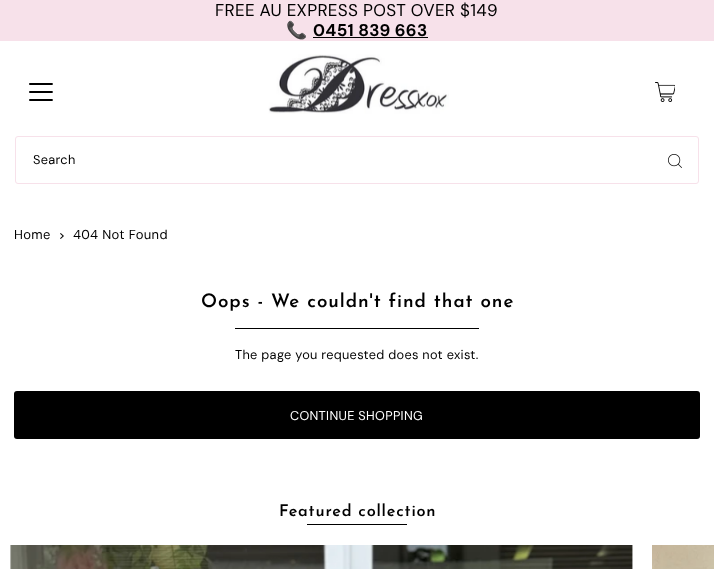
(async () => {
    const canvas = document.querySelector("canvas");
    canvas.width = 714;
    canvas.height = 569;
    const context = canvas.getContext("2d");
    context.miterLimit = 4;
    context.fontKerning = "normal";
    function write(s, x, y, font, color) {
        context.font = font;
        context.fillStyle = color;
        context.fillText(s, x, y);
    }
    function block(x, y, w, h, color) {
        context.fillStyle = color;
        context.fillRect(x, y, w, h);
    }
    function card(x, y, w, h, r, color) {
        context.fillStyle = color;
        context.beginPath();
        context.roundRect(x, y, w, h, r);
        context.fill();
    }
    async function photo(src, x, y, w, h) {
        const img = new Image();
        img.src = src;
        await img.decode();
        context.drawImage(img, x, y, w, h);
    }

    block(0, 0, 714, 569, "rgb(255, 255, 255)");
    block(0, 0, 714, 41, "rgb(247, 225, 234)");
    context.letterSpacing = "0.3px";
    context.wordSpacing = "-0.25px";
    write("FREE AU EXPRESS POST OVER $149", 215, 16, "17px DM Sans", "rgb(0, 0, 0)");
    context.wordSpacing = "0px";
    write("📞", 286, 36, "17px Noto Color Emoji", "rgb(0, 0, 0)");
    write("0451 839 663", 313, 36, "bold 17px DM Sans", "rgb(0, 0, 0)");
    block(313, 37, 115, 1, "rgb(0, 0, 0)");
    await photo("media/1.png", 29, 83, 24, 18);
    await photo("media/2.png", 268, 54, 181, 60);
    await photo("media/3.png", 655, 82, 20, 20);
    context.beginPath();
    context.roundRect(15.5, 136.5, 683, 47, 2.5);
    context.strokeStyle = "rgb(247, 225, 234)";
    context.stroke();
    write("Search", 33, 164, "12.75px 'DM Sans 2'", "rgb(0, 0, 0)");
    await photo("media/4.png", 668, 154, 14, 14);
    write("Home", 14, 239, "13px DM Sans", "rgb(0, 0, 0)");
    await photo("media/5.png", 60, 233, 4, 6);
    write("404 Not Found", 73, 239, "13px DM Sans", "rgb(0, 0, 0)");
    context.letterSpacing = "0.95px";
    write("Oops - We couldn't find that one", 201, 307, "600 18.75px Josefin Sans", "rgb(0, 0, 0)");
    block(235, 328, 244, 1, "rgb(0, 0, 0)");
    context.letterSpacing = "0.3px";
    write("The page you requested does not exist.", 235, 359, "12.75px 'DM Sans 2'", "rgb(0, 0, 0)");
    card(14, 391, 686, 48, 3, "rgb(0, 0, 0)");
    write("CONTINUE SHOPPING", 290, 420, "12.75px 'DM Sans 2'", "rgb(255, 255, 255)");
    context.letterSpacing = "0.8px";
    write("Featured collection", 279, 516, "600 16.25px Josefin Sans", "rgb(0, 0, 0)");
    block(307, 524, 100, 1, "rgb(0, 0, 0)");
    await photo("media/6.png", 10, 545, 623, 24);
    await photo("media/7.png", 652, 545, 62, 24);
})();
